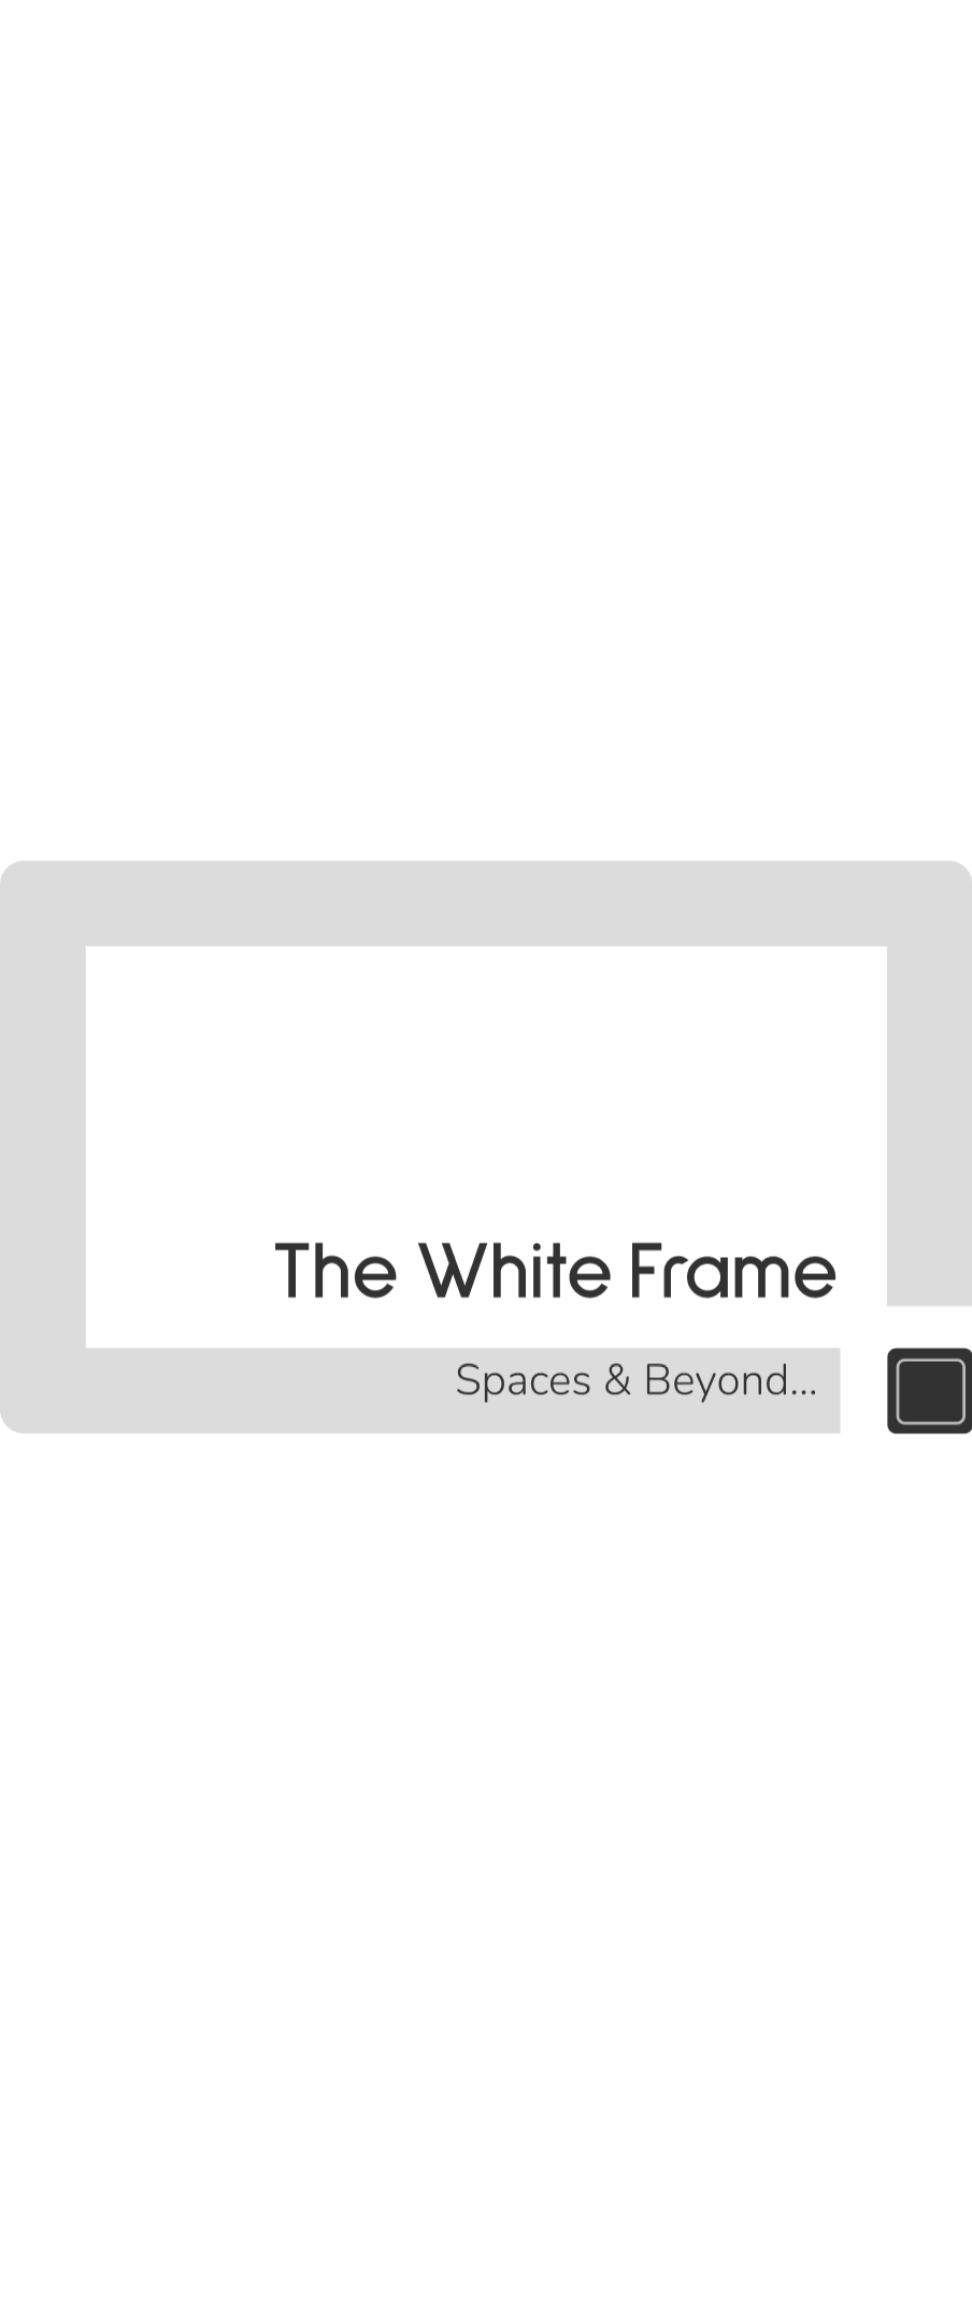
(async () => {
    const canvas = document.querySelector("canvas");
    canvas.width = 972;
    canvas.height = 2315;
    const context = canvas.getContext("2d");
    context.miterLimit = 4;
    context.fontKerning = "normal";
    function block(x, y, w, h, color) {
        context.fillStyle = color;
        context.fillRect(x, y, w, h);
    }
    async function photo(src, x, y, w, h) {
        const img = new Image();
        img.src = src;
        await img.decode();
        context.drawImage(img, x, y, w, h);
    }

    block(0, 0, 972, 2315, "rgb(255, 255, 255)");
    await photo("media/1.png", 0, 860, 972, 575);
})();
